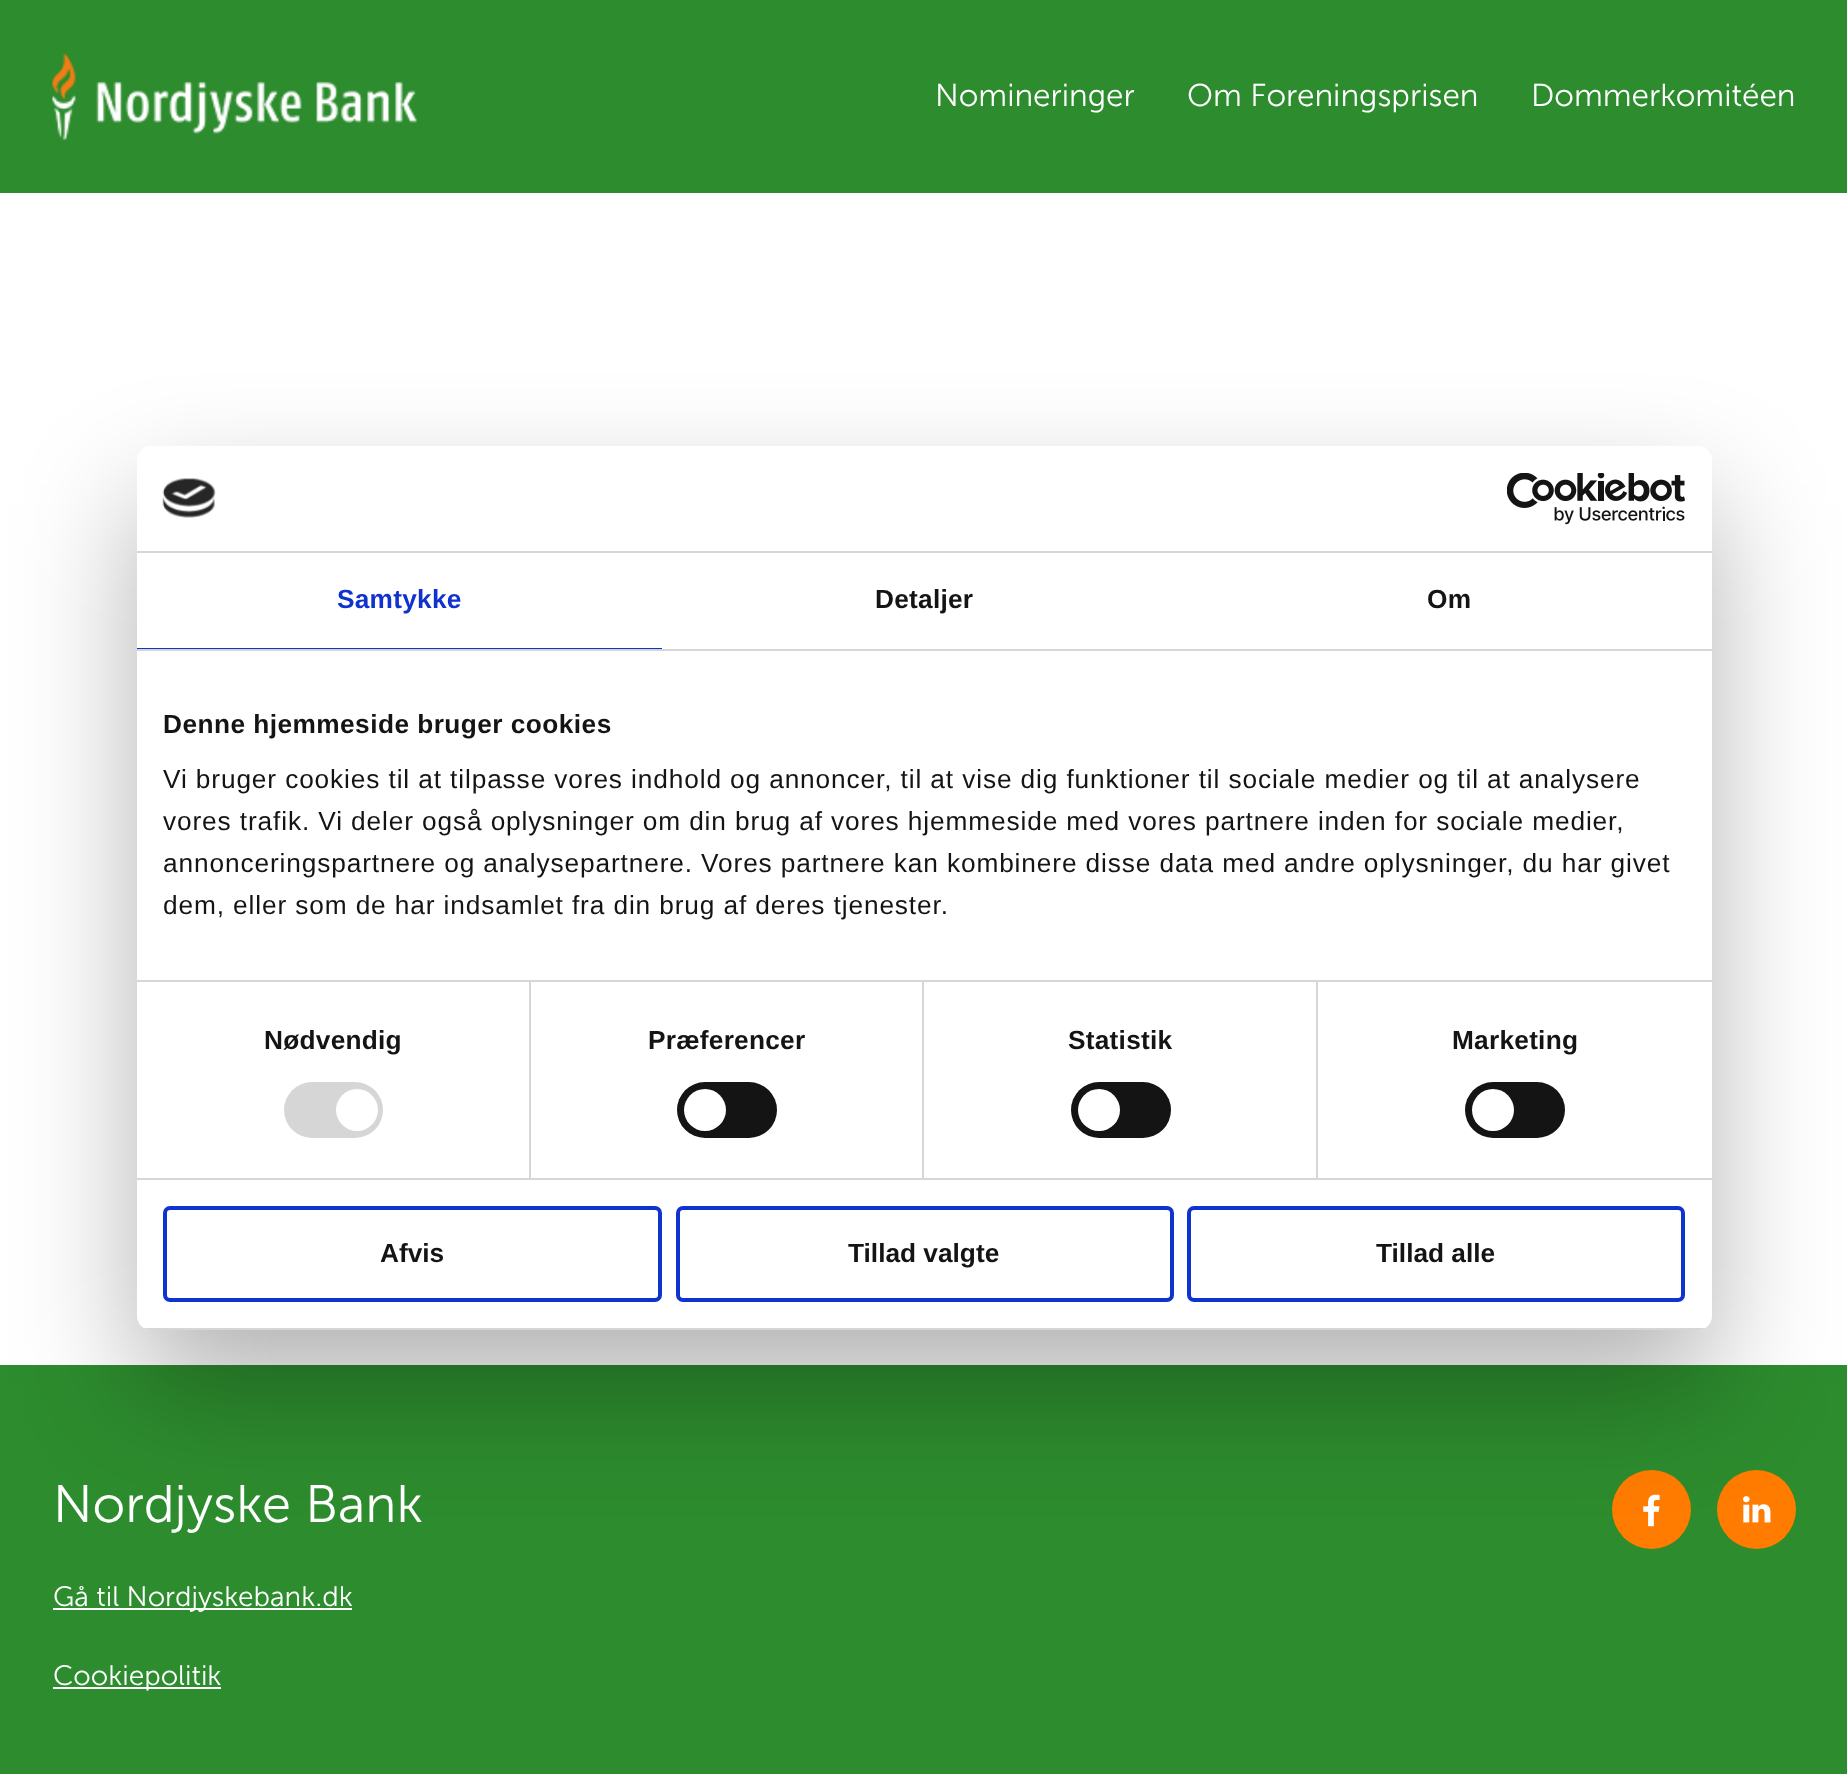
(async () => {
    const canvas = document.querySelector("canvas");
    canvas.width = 1847;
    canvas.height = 1774;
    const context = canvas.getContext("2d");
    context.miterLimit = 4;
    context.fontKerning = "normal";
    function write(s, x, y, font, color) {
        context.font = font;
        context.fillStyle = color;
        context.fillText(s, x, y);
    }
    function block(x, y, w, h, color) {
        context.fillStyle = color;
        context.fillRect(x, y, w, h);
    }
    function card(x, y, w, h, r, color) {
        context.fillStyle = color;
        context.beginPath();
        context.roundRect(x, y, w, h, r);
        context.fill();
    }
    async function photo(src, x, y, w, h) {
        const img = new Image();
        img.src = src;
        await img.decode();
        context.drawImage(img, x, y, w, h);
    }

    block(0, 0, 1847, 1774, "rgb(255, 255, 255)");
    block(0, 0, 1847, 193, "rgb(45, 140, 46)");
    await photo("media/1.png", 52, 53, 365, 87);
    write("Nomineringer", 935, 106, "300 31.5px Museo Sans", "rgb(255, 255, 255)");
    write("Om Foreningsprisen", 1187, 106, "300 31.5px Museo Sans", "rgb(255, 255, 255)");
    write("Dommerkomitéen", 1531, 106, "300 31.5px Museo Sans", "rgb(255, 255, 255)");
    block(0, 1365, 1847, 409, "rgb(45, 140, 46)");
    context.fillStyle = "rgb(255, 124, 0)";
    context.beginPath();
    context.arc(1651.5, 1509.5, 39.5, 0, Math.PI * 2);
    context.fill();
    await photo("media/4.png", 1643, 1494, 17, 33);
    context.beginPath();
    context.arc(1756.5, 1509.5, 39.5, 0, Math.PI * 2);
    context.fill();
    await photo("media/5.png", 1743, 1496, 28, 27);
    context.fillStyle = "rgba(0, 0, 0, 0.3)";
    context.filter = "blur(59.5px)";
    context.beginPath();
    context.roundRect(137, 502, 1575, 884, 14);
    context.fill();
    context.filter = "none";
    card(137, 446, 1575, 884, 14, "rgb(255, 255, 255)");
    block(137, 551, 1575, 2, "rgb(214, 214, 214)");
    await photo("media/2.png", 162, 478, 54, 40);
    await photo("media/3.png", 1507, 473, 178, 52);
    block(137, 649, 1575, 2, "rgb(214, 214, 214)");
    block(137, 648, 525, 1, "rgb(16, 50, 207)");
    context.letterSpacing = "0.25px";
    write("Samtykke", 337, 608, "bold 26.25px Liberation Sans", "rgb(16, 50, 207)");
    write("Detaljer", 875, 608, "bold 26.25px Liberation Sans", "rgb(20, 20, 20)");
    write("Om", 1427, 608, "bold 26.25px Liberation Sans", "rgb(20, 20, 20)");
    block(137, 980, 1575, 2, "rgb(214, 214, 214)");
    context.letterSpacing = "0.45px";
    write("Denne hjemmeside bruger cookies", 163, 733, "bold 26.25px Liberation Sans", "rgb(20, 20, 20)");
    context.letterSpacing = "0.88px";
    write("Vi bruger cookies til at tilpasse vores indhold og annoncer, til at vise dig funktioner til sociale medier og til at analysere", 163, 788, "26.25px Liberation Sans", "rgb(20, 20, 20)");
    write("vores trafik. Vi deler også oplysninger om din brug af vores hjemmeside med vores partnere inden for sociale medier,", 163, 830, "26.25px Liberation Sans", "rgb(20, 20, 20)");
    write("annonceringspartnere og analysepartnere. Vores partnere kan kombinere disse data med andre oplysninger, du har givet", 163, 872, "26.25px Liberation Sans", "rgb(20, 20, 20)");
    write("dem, eller som de har indsamlet fra din brug af deres tjenester.", 163, 914, "26.25px Liberation Sans", "rgb(20, 20, 20)");
    block(137, 1178, 1575, 2, "rgb(214, 214, 214)");
    block(529, 982, 2, 196, "rgb(214, 214, 214)");
    context.letterSpacing = "0.25px";
    write("Nødvendig", 264, 1049, "bold 26.25px Liberation Sans", "rgb(20, 20, 20)");
    card(284, 1082, 99, 56, 28, "rgb(214, 214, 214)");
    context.fillStyle = "rgb(255, 255, 255)";
    context.beginPath();
    context.arc(357, 1110, 21, 0, Math.PI * 2);
    context.fill();
    block(922, 982, 2, 196, "rgb(214, 214, 214)");
    write("Præferencer", 648, 1049, "bold 26.25px Liberation Sans", "rgb(20, 20, 20)");
    card(677, 1082, 100, 56, 28, "rgb(20, 20, 20)");
    context.fillStyle = "rgb(255, 255, 255)";
    context.beginPath();
    context.arc(705, 1110, 21, 0, Math.PI * 2);
    context.fill();
    block(1316, 982, 2, 196, "rgb(214, 214, 214)");
    write("Statistik", 1068, 1049, "bold 26.25px Liberation Sans", "rgb(20, 20, 20)");
    card(1071, 1082, 100, 56, 28, "rgb(20, 20, 20)");
    context.fillStyle = "rgb(255, 255, 255)";
    context.beginPath();
    context.arc(1099, 1110, 21, 0, Math.PI * 2);
    context.fill();
    write("Marketing", 1452, 1049, "bold 26.25px Liberation Sans", "rgb(20, 20, 20)");
    card(1465, 1082, 100, 56, 28, "rgb(20, 20, 20)");
    context.fillStyle = "rgb(255, 255, 255)";
    context.beginPath();
    context.arc(1493, 1110, 21, 0, Math.PI * 2);
    context.fill();
    context.save();
    context.beginPath();
    context.roundRect(137, 446, 1575, 884, 14);
    context.clip();
    block(137, 1328, 1575, 2, "rgb(214, 214, 214)");
    context.restore();
    context.beginPath();
    context.roundRect(165, 1208, 495, 92, 5);
    context.strokeStyle = "rgb(16, 50, 207)";
    context.lineWidth = 4;
    context.stroke();
    context.letterSpacing = "0px";
    write("Afvis", 380, 1262, "bold 26.25px Liberation Sans", "rgb(20, 20, 20)");
    context.beginPath();
    context.roundRect(678, 1208, 494, 92, 5);
    context.stroke();
    write("Tillad valgte", 848, 1262, "bold 26.25px Liberation Sans", "rgb(20, 20, 20)");
    context.beginPath();
    context.roundRect(1189, 1208, 494, 92, 5);
    context.stroke();
    write("Tillad alle", 1376, 1262, "bold 26.25px Liberation Sans", "rgb(20, 20, 20)");
    write("Nordjyske Bank", 53, 1522, "300 52.5px Museo Sans", "rgb(255, 255, 255)");
    block(53, 1608, 299, 2, "rgb(255, 255, 255)");
    write("Gå til Nordjyskebank.dk", 53, 1606, "300 28px Museo Sans", "rgb(255, 255, 255)");
    block(53, 1687, 168, 2, "rgb(255, 255, 255)");
    write("Cookiepolitik", 53, 1685, "300 28px Museo Sans", "rgb(255, 255, 255)");
})();
